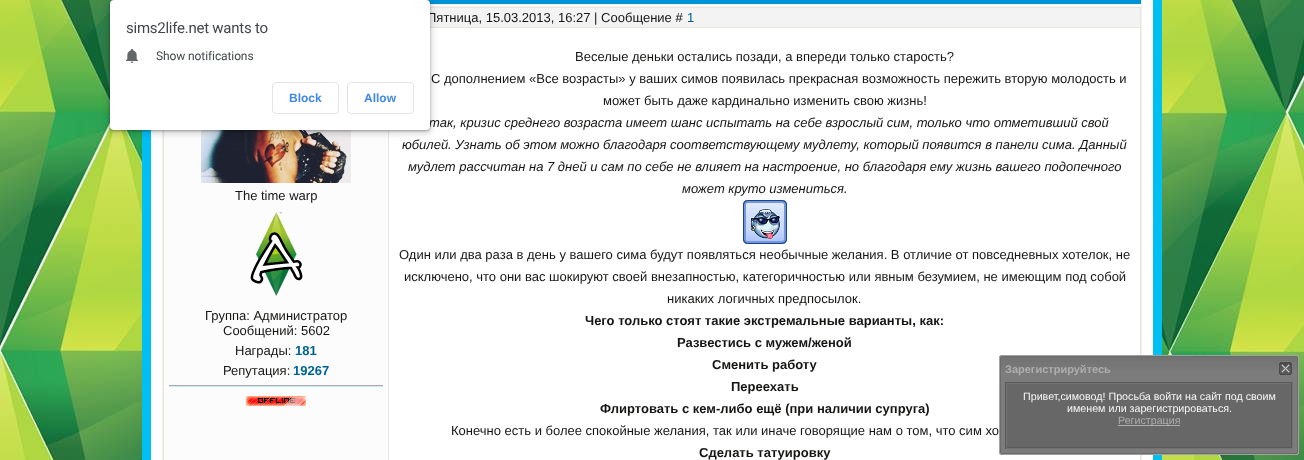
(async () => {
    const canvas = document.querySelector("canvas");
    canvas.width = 1304;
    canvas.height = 460;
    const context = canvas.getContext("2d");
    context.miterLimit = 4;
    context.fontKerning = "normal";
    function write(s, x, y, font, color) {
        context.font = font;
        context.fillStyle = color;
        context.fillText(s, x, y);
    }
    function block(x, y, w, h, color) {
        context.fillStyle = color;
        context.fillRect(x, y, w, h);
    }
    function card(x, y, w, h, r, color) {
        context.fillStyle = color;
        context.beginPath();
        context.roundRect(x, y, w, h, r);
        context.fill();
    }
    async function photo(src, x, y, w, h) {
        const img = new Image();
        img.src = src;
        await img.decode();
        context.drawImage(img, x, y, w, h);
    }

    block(0, 0, 1304, 460, "rgb(255, 255, 255)");
    await photo("media/1.png", 0, 0, 1304, 460);
    await photo("media/2.png", 142, 0, 1020, 460);
    block(162, 0, 980, 460, "rgb(241, 241, 237)");
    block(426, 0, 715, 4, "rgb(0, 146, 214)");
    block(430, 5, 711, 1, "rgb(255, 255, 255)");
    block(163, 7, 978, 453, "rgb(232, 231, 223)");
    block(430, 8, 710, 19, "rgb(243, 243, 244)");
    write("Пятница, 15.03.2013, 16:27 | Сообщение #", 427, 22, "13px Liberation Sans", "rgb(22, 21, 20)");
    write("1", 687, 22, "13px Liberation Sans", "rgb(0, 100, 146)");
    block(164, 130, 224, 330, "rgb(252, 252, 252)");
    await photo("media/3.png", 201, 130, 150, 53);
    write("The time warp", 235, 200, "13px Liberation Sans", "rgb(22, 21, 20)");
    await photo("media/4.png", 250, 212, 53, 84);
    write("Группа: Администратор", 205, 320, "13px Liberation Sans", "rgb(22, 21, 20)");
    write("Сообщений: 5602", 223, 335, "13px Liberation Sans", "rgb(22, 21, 20)");
    write("Награды:", 235, 355, "13px Liberation Sans", "rgb(22, 21, 20)");
    write("181", 295, 355, "bold 13px Liberation Sans", "rgb(0, 100, 146)");
    write("Репутация:", 223, 375, "13px Liberation Sans", "rgb(22, 21, 20)");
    write("19267", 293, 375, "bold 13px Liberation Sans", "rgb(0, 100, 146)");
    block(169, 385, 214, 1, "rgb(170, 170, 170)");
    block(169, 386, 214, 1, "rgb(204, 237, 250)");
    await photo("media/5.png", 246, 396, 60, 10);
    block(389, 28, 751, 432, "rgb(255, 255, 255)");
    write("Веселые деньки остались позади, а впереди только старость?", 575, 61, "13px Liberation Sans", "rgb(22, 21, 20)");
    write("С дополнением «Все возрасты» у ваших симов появилась прекрасная возможность пережить вторую молодость и", 431, 83, "13px Liberation Sans", "rgb(22, 21, 20)");
    write("может быть даже кардинально изменить свою жизнь!", 603, 105, "13px Liberation Sans", "rgb(22, 21, 20)");
    write("так, кризис среднего возраста имеет шанс испытать на себе взрослый сим, только что отметивший свой", 429, 127, "italic 13px Liberation Sans", "rgb(22, 21, 20)");
    write("юбилей. Узнать об этом можно благодаря соответствующему мудлету, который появится в панели сима. Данный", 402, 149, "italic 13px Liberation Sans", "rgb(22, 21, 20)");
    write("мудлет рассчитан на 7 дней и сам по себе не влияет на настроение, но благодаря ему жизнь вашего подопечного", 408, 171, "italic 13px Liberation Sans", "rgb(22, 21, 20)");
    write("может круто измениться.", 682, 193, "italic 13px Liberation Sans", "rgb(22, 21, 20)");
    await photo("media/6.png", 743, 200, 44, 44);
    write("Один или два раза в день у вашего сима будут появляться необычные желания. В отличие от повседневных хотелок, не", 399, 259, "13px Liberation Sans", "rgb(22, 21, 20)");
    write("исключено, что они вас шокируют своей внезапностью, категоричностью или явным безумием, не имеющим под собой", 404, 281, "13px Liberation Sans", "rgb(22, 21, 20)");
    write("никаких логичных предпосылок.", 667, 303, "13px Liberation Sans", "rgb(22, 21, 20)");
    write("Чего только стоят такие экстремальные варианты, как:", 585, 325, "bold 13px Liberation Sans", "rgb(22, 21, 20)");
    write("Развестись с мужем/женой", 677, 347, "bold 13px Liberation Sans", "rgb(22, 21, 20)");
    write("Сменить работу", 712, 369, "bold 13px Liberation Sans", "rgb(22, 21, 20)");
    write("Переехать", 731, 391, "bold 13px Liberation Sans", "rgb(22, 21, 20)");
    write("Флиртовать с кем-либо ещё (при наличии супруга)", 600, 413, "bold 13px Liberation Sans", "rgb(22, 21, 20)");
    write("Конечно есть и более спокойные желания, так или иначе говорящие нам о том, что сим хо", 451, 435, "13px Liberation Sans", "rgb(22, 21, 20)");
    write("Сделать татуировку", 699, 457, "bold 13px Liberation Sans", "rgb(22, 21, 20)");
    context.fillStyle = "rgba(0, 0, 0, 0.15)";
    context.filter = "blur(3px)";
    context.beginPath();
    context.roundRect(108, 0, 324, 134, 6);
    context.fill();
    context.filter = "none";
    context.fillStyle = "rgba(0, 0, 0, 0.3)";
    context.filter = "blur(1px)";
    context.beginPath();
    context.roundRect(110, 1, 320, 130, 4);
    context.fill();
    context.filter = "none";
    card(110, 0, 320, 130, 4, "rgb(255, 255, 255)");
    context.letterSpacing = "-0.25px";
    write("sims2life.net wants to", 126, 33, "15px Roboto", "rgb(67, 71, 73)");
    await photo("media/7.png", 126, 49, 12, 14);
    context.letterSpacing = "-0.1px";
    write("Show notifications", 156, 60, "12px Roboto", "rgb(67, 71, 73)");
    context.beginPath();
    context.roundRect(272.5, 82.5, 66, 31, 3.5);
    context.strokeStyle = "rgb(228, 228, 228)";
    context.stroke();
    context.letterSpacing = "0px";
    write("Block", 289, 102, "bold 12px Liberation Sans", "rgb(64, 137, 232)");
    context.beginPath();
    context.roundRect(347.5, 82.5, 66, 31, 3.5);
    context.stroke();
    write("Allow", 364, 102, "bold 12px Liberation Sans", "rgb(64, 137, 232)");
    await photo("media/8.png", 999, 355, 6, 27);
    await photo("media/9.png", 1293, 355, 6, 27);
    await photo("media/10.png", 1005, 355, 288, 27);
    write("Зарегистрируйтесь", 1005, 373, "bold 11px Liberation Sans", "rgb(174, 174, 174)");
    await photo("media/11.png", 1278, 361, 15, 14);
    await photo("media/12.png", 999, 382, 6, 67);
    await photo("media/13.png", 1293, 382, 6, 67);
    block(1007, 384, 284, 63, "rgb(103, 103, 103)");
    block(1005, 382, 288, 1, "rgb(89, 89, 89)");
    block(1292, 382, 1, 67, "rgb(114, 114, 114)");
    block(1005, 448, 288, 1, "rgb(114, 114, 114)");
    block(1005, 382, 1, 67, "rgb(89, 89, 89)");
    block(1006, 383, 286, 1, "rgb(114, 114, 114)");
    block(1291, 383, 1, 65, "rgb(89, 89, 89)");
    block(1006, 447, 286, 1, "rgb(89, 89, 89)");
    block(1006, 383, 1, 65, "rgb(114, 114, 114)");
    write("Привет,симовод! Просьба войти на сайт под своим", 1023, 400, "10.7px Liberation Sans", "rgb(247, 247, 247)");
    write("именем или зарегистрироваться.", 1067, 412, "10.7px Liberation Sans", "rgb(247, 247, 247)");
    block(1118, 425, 62, 1, "rgb(174, 174, 174)");
    write("Регистрация", 1118, 424, "10.7px Liberation Sans", "rgb(174, 174, 174)");
    await photo("media/14.png", 999, 449, 6, 6);
    await photo("media/15.png", 1293, 449, 6, 6);
    await photo("media/16.png", 1005, 449, 288, 6);
})();
